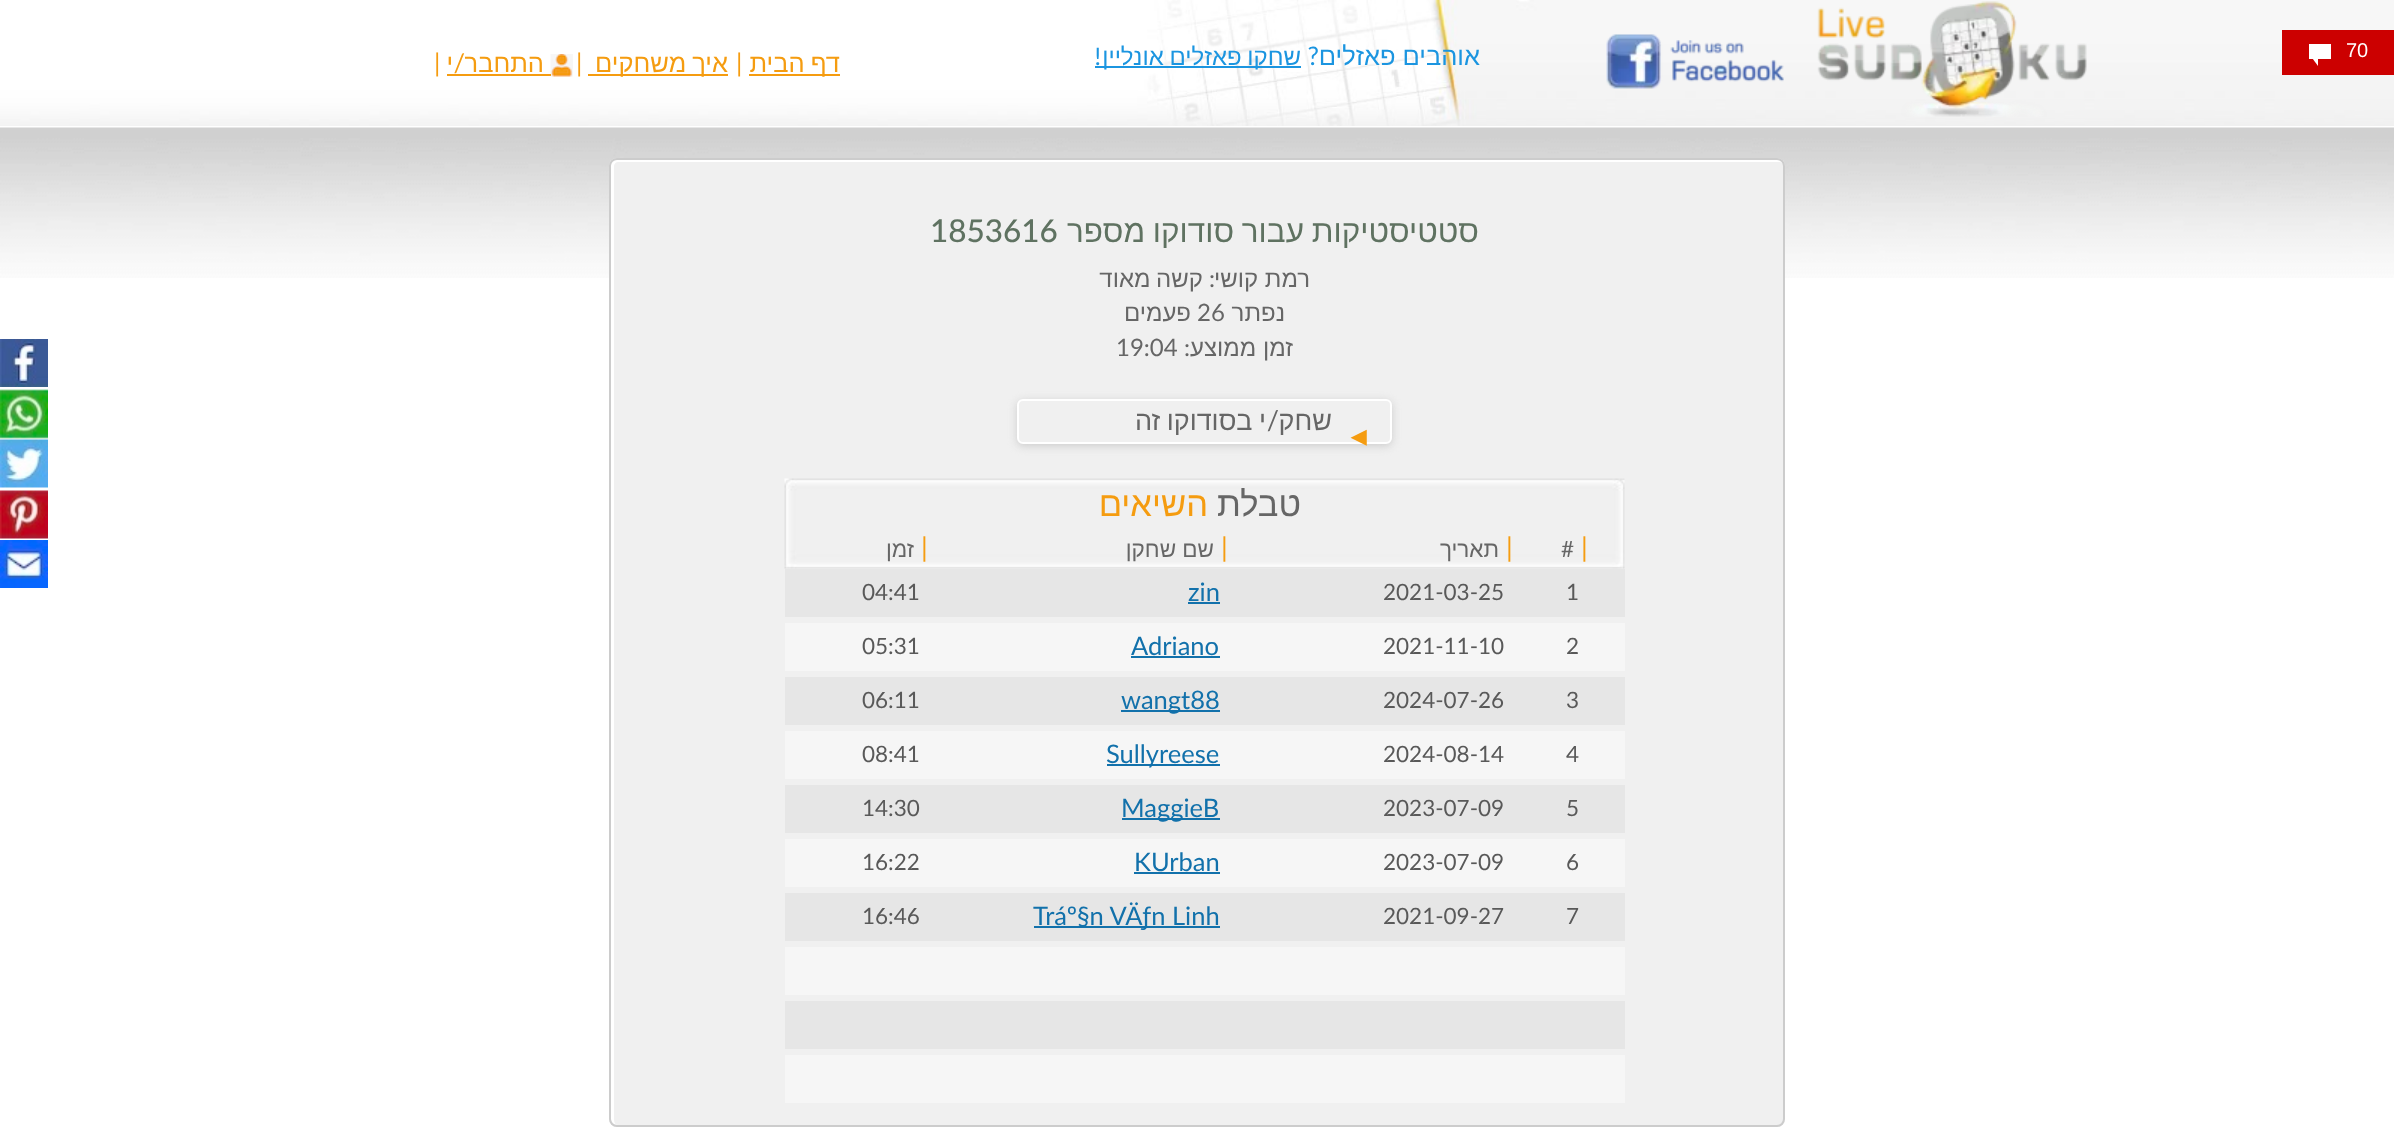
(async () => {
    const canvas = document.querySelector("canvas");
    canvas.width = 2394;
    canvas.height = 1137;
    const context = canvas.getContext("2d");
    context.miterLimit = 4;
    context.fontKerning = "normal";
    function write(s, x, y, font, color) {
        context.font = font;
        context.fillStyle = color;
        context.fillText(s, x, y);
    }
    function block(x, y, w, h, color) {
        context.fillStyle = color;
        context.fillRect(x, y, w, h);
    }
    function card(x, y, w, h, r, color) {
        context.fillStyle = color;
        context.beginPath();
        context.roundRect(x, y, w, h, r);
        context.fill();
    }
    async function photo(src, x, y, w, h) {
        const img = new Image();
        img.src = src;
        await img.decode();
        context.drawImage(img, x, y, w, h);
    }

    block(0, 0, 2394, 1137, "rgb(255, 255, 255)");
    await photo("media/1.png", 0, 0, 2394, 126);
    write("|", 434, 72, "25.5px Lato", "rgb(245, 156, 16)");
    context.direction = "rtl";
    write("י", 453, 72, "25.5px Liberation Sans", "rgb(245, 156, 16)");
    write("/", 465, 72, "25.5px Lato", "rgb(245, 156, 16)");
    write("התחבר", 544, 72, "25.5px Liberation Sans", "rgb(245, 156, 16)");
    await photo("media/2.png", 550, 54, 23, 23);
    block(447, 74, 104, 2, "rgb(245, 156, 16)");
    context.direction = "ltr";
    write("|", 576, 72, "25.5px Lato", "rgb(245, 156, 16)");
    block(588, 74, 140, 2, "rgb(245, 156, 16)");
    context.wordSpacing = "-1px";
    context.direction = "rtl";
    write("איך משחקים", 728, 72, "25.5px Liberation Sans", "rgb(245, 156, 16)");
    context.wordSpacing = "0px";
    context.direction = "ltr";
    write("|", 736, 72, "25.5px Lato", "rgb(245, 156, 16)");
    block(749, 74, 91, 2, "rgb(245, 156, 16)");
    context.wordSpacing = "-1px";
    context.direction = "rtl";
    write("דף הבית", 840, 72, "25.5px Liberation Sans", "rgb(245, 156, 16)");
    context.wordSpacing = "0px";
    write("!", 1101, 65, "24px Lato", "rgb(27, 149, 224)");
    block(1095, 66, 206, 2, "rgb(27, 149, 224)");
    context.wordSpacing = "-1px";
    write("שחקו פאזלים אונליין", 1301, 65, "24px Liberation Sans", "rgb(27, 149, 224)");
    context.wordSpacing = "0px";
    write("?", 1319, 65, "25.5px Lato", "rgb(27, 149, 224)");
    write("אוהבים פאזלים", 1480, 65, "25.5px Liberation Sans", "rgb(27, 149, 224)");
    await photo("media/3.png", 1606, 34, 178, 55);
    await photo("media/4.png", 1817, 1, 270, 116);
    block(2282, 30, 112, 45, "rgb(204, 0, 0)");
    block(2309, 44, 22, 15, "rgb(255, 255, 255)");
    context.beginPath();
    context.moveTo(2318, 58.5);
    context.lineTo(2318, 66);
    context.lineTo(2312.5, 58.5);
    context.closePath();
    context.fill();
    context.direction = "ltr";
    write("70", 2346, 57, "20px Liberation Sans", "rgb(255, 255, 255)");
    await photo("media/5.png", 0, 339, 48, 48);
    await photo("media/6.png", 0, 389, 48, 50);
    await photo("media/7.png", 0, 439, 48, 49);
    await photo("media/8.png", 0, 490, 48, 49);
    await photo("media/9.png", 0, 540, 48, 48);
    await photo("media/10.png", 0, 127, 2394, 151);
    card(609, 158, 1176, 969, 8, "rgb(240, 240, 240)");
    context.fillStyle = "rgb(255, 255, 255)";
    context.beginPath();
    context.moveTo(618, 162);
    context.lineTo(1779, 162);
    context.bezierCurveTo(1781, 162, 1784, 164, 1784, 166);
    context.lineTo(1784, 165);
    context.bezierCurveTo(1784, 162, 1781, 159, 1778, 159);
    context.lineTo(617, 159);
    context.bezierCurveTo(614, 159, 611, 162, 611, 165);
    context.lineTo(611, 1119);
    context.bezierCurveTo(611, 1122, 614, 1125, 617, 1125);
    context.lineTo(618, 1125);
    context.bezierCurveTo(616, 1125, 614, 1123, 614, 1120);
    context.lineTo(614, 166);
    context.bezierCurveTo(614, 164, 616, 162, 618, 162);
    context.closePath();
    context.fill();
    context.beginPath();
    context.roundRect(610, 159, 1174, 967, 7);
    context.strokeStyle = "rgb(204, 204, 204)";
    context.lineWidth = 2;
    context.stroke();
    write("1853616", 930, 242, "500 31.5px Lato", "rgb(95, 114, 97)");
    context.wordSpacing = "-1px";
    context.direction = "rtl";
    write("סטטיסטיקות עבור סודוקו מספר", 1479, 242, "31.5px Liberation Sans", "rgb(95, 114, 97)");
    write("קשה מאוד", 1203, 287, "24px Liberation Sans", "rgb(102, 102, 102)");
    context.wordSpacing = "0px";
    write(":", 1215, 287, "24px Lato", "rgb(102, 102, 102)");
    write("רמת קושי", 1310, 287, "24px Liberation Sans", "rgb(102, 102, 102)");
    write("פעמים", 1191, 321, "24px Liberation Sans", "rgb(102, 102, 102)");
    context.direction = "ltr";
    write("26", 1197, 321, "24px Lato", "rgb(102, 102, 102)");
    context.direction = "rtl";
    write("נפתר", 1285, 321, "24px Liberation Sans", "rgb(102, 102, 102)");
    context.direction = "ltr";
    write("19:04", 1116, 356, "24px Lato", "rgb(102, 102, 102)");
    context.direction = "rtl";
    write(":", 1190, 356, "24px Lato", "rgb(102, 102, 102)");
    write("זמן ממוצע", 1293, 356, "24px Liberation Sans", "rgb(102, 102, 102)");
    context.fillStyle = "rgb(204, 204, 204)";
    context.filter = "blur(4px)";
    context.beginPath();
    context.roundRect(1017, 401, 375, 45, 6);
    context.fill();
    context.filter = "none";
    context.fillStyle = "rgb(240, 240, 240)";
    context.beginPath();
    context.roundRect(1018, 400, 373, 43, 5);
    context.fill();
    context.strokeStyle = "rgb(255, 255, 255)";
    context.stroke();
    context.wordSpacing = "-1px";
    write("י בסודוקו זה", 1266, 430, "27px Liberation Sans", "rgb(102, 102, 102)");
    context.wordSpacing = "0px";
    write("/", 1279, 430, "27px Lato", "rgb(102, 102, 102)");
    write("שחק", 1332, 430, "27px Liberation Sans", "rgb(102, 102, 102)");
    context.direction = "ltr";
    context.fillStyle = "rgb(245, 156, 16)";
    context.save();
    context.translate(1372, 430);
    context.rotate(180 * Math.PI / 180);
    context.fillText("►", 0, 0);
    context.restore();
    await photo("media/11.png", 784, 478, 841, 91);
    context.direction = "rtl";
    write("השיאים", 1208, 516, "34.5px Liberation Sans", "rgb(245, 156, 16)");
    write("טבלת", 1301, 516, "34.5px Liberation Sans", "rgb(102, 102, 102)");
    write("זמן", 914, 557, "22.5px Liberation Sans", "rgb(102, 102, 102)");
    context.direction = "ltr";
    write("|", 921, 557, "27px Lato", "rgb(245, 156, 16)");
    context.direction = "rtl";
    write("שם שחקן", 1214, 557, "22.5px Liberation Sans", "rgb(102, 102, 102)");
    context.direction = "ltr";
    write("|", 1221, 557, "27px Lato", "rgb(245, 156, 16)");
    context.direction = "rtl";
    write("תאריך", 1499, 557, "22.5px Liberation Sans", "rgb(102, 102, 102)");
    context.direction = "ltr";
    write("|", 1506, 557, "27px Lato", "rgb(245, 156, 16)");
    write("#", 1561, 557, "22.5px Lato", "rgb(102, 102, 102)");
    write("|", 1581, 557, "27px Lato", "rgb(245, 156, 16)");
    block(785, 569, 840, 48, "rgb(230, 230, 230)");
    write("04:41", 862, 600, "22.5px Lato", "rgb(89, 89, 89)");
    write("zin", 1188, 601, "25.5px Lato", "rgb(18, 113, 171)");
    block(1188, 602, 32, 2, "rgb(18, 113, 171)");
    write("2021-03-25", 1383, 600, "22.5px Lato", "rgb(89, 89, 89)");
    write("1", 1566, 600, "22.5px Lato", "rgb(89, 89, 89)");
    block(785, 623, 840, 48, "rgb(246, 246, 246)");
    write("05:31", 862, 654, "22.5px Lato", "rgb(89, 89, 89)");
    write("Adriano", 1131, 655, "25.5px Lato", "rgb(18, 113, 171)");
    block(1131, 656, 89, 2, "rgb(18, 113, 171)");
    write("2021-11-10", 1383, 654, "22.5px Lato", "rgb(89, 89, 89)");
    write("2", 1566, 654, "22.5px Lato", "rgb(89, 89, 89)");
    block(785, 677, 840, 48, "rgb(230, 230, 230)");
    write("06:11", 862, 708, "22.5px Lato", "rgb(89, 89, 89)");
    block(1121, 710, 99, 2, "rgb(18, 113, 171)");
    write("wangt88", 1121, 709, "25.5px Lato", "rgb(18, 113, 171)");
    write("2024-07-26", 1383, 708, "22.5px Lato", "rgb(89, 89, 89)");
    write("3", 1566, 708, "22.5px Lato", "rgb(89, 89, 89)");
    block(785, 731, 840, 48, "rgb(246, 246, 246)");
    write("08:41", 862, 762, "22.5px Lato", "rgb(89, 89, 89)");
    block(1107, 764, 113, 2, "rgb(18, 113, 171)");
    write("Sullyreese", 1106, 763, "25.5px Lato", "rgb(18, 113, 171)");
    write("2024-08-14", 1383, 762, "22.5px Lato", "rgb(89, 89, 89)");
    write("4", 1566, 762, "22.5px Lato", "rgb(89, 89, 89)");
    block(785, 785, 840, 48, "rgb(230, 230, 230)");
    write("14:30", 862, 816, "22.5px Lato", "rgb(89, 89, 89)");
    block(1122, 818, 98, 2, "rgb(18, 113, 171)");
    write("MaggieB", 1121, 817, "25.5px Lato", "rgb(18, 113, 171)");
    write("2023-07-09", 1383, 816, "22.5px Lato", "rgb(89, 89, 89)");
    write("5", 1566, 816, "22.5px Lato", "rgb(89, 89, 89)");
    block(785, 839, 840, 48, "rgb(246, 246, 246)");
    write("16:22", 862, 870, "22.5px Lato", "rgb(89, 89, 89)");
    write("KUrban", 1134, 871, "25.5px Lato", "rgb(18, 113, 171)");
    block(1134, 872, 86, 2, "rgb(18, 113, 171)");
    write("2023-07-09", 1383, 870, "22.5px Lato", "rgb(89, 89, 89)");
    write("6", 1566, 870, "22.5px Lato", "rgb(89, 89, 89)");
    block(785, 893, 840, 48, "rgb(230, 230, 230)");
    write("16:46", 862, 924, "22.5px Lato", "rgb(89, 89, 89)");
    block(1034, 926, 186, 2, "rgb(18, 113, 171)");
    write("Tráº§n VÄƒn Linh", 1033, 925, "25.5px Lato", "rgb(18, 113, 171)");
    write("2021-09-27", 1383, 924, "22.5px Lato", "rgb(89, 89, 89)");
    write("7", 1566, 924, "22.5px Lato", "rgb(89, 89, 89)");
    block(785, 947, 840, 48, "rgb(246, 246, 246)");
    block(785, 1001, 840, 48, "rgb(230, 230, 230)");
    block(785, 1055, 840, 48, "rgb(246, 246, 246)");
})();
